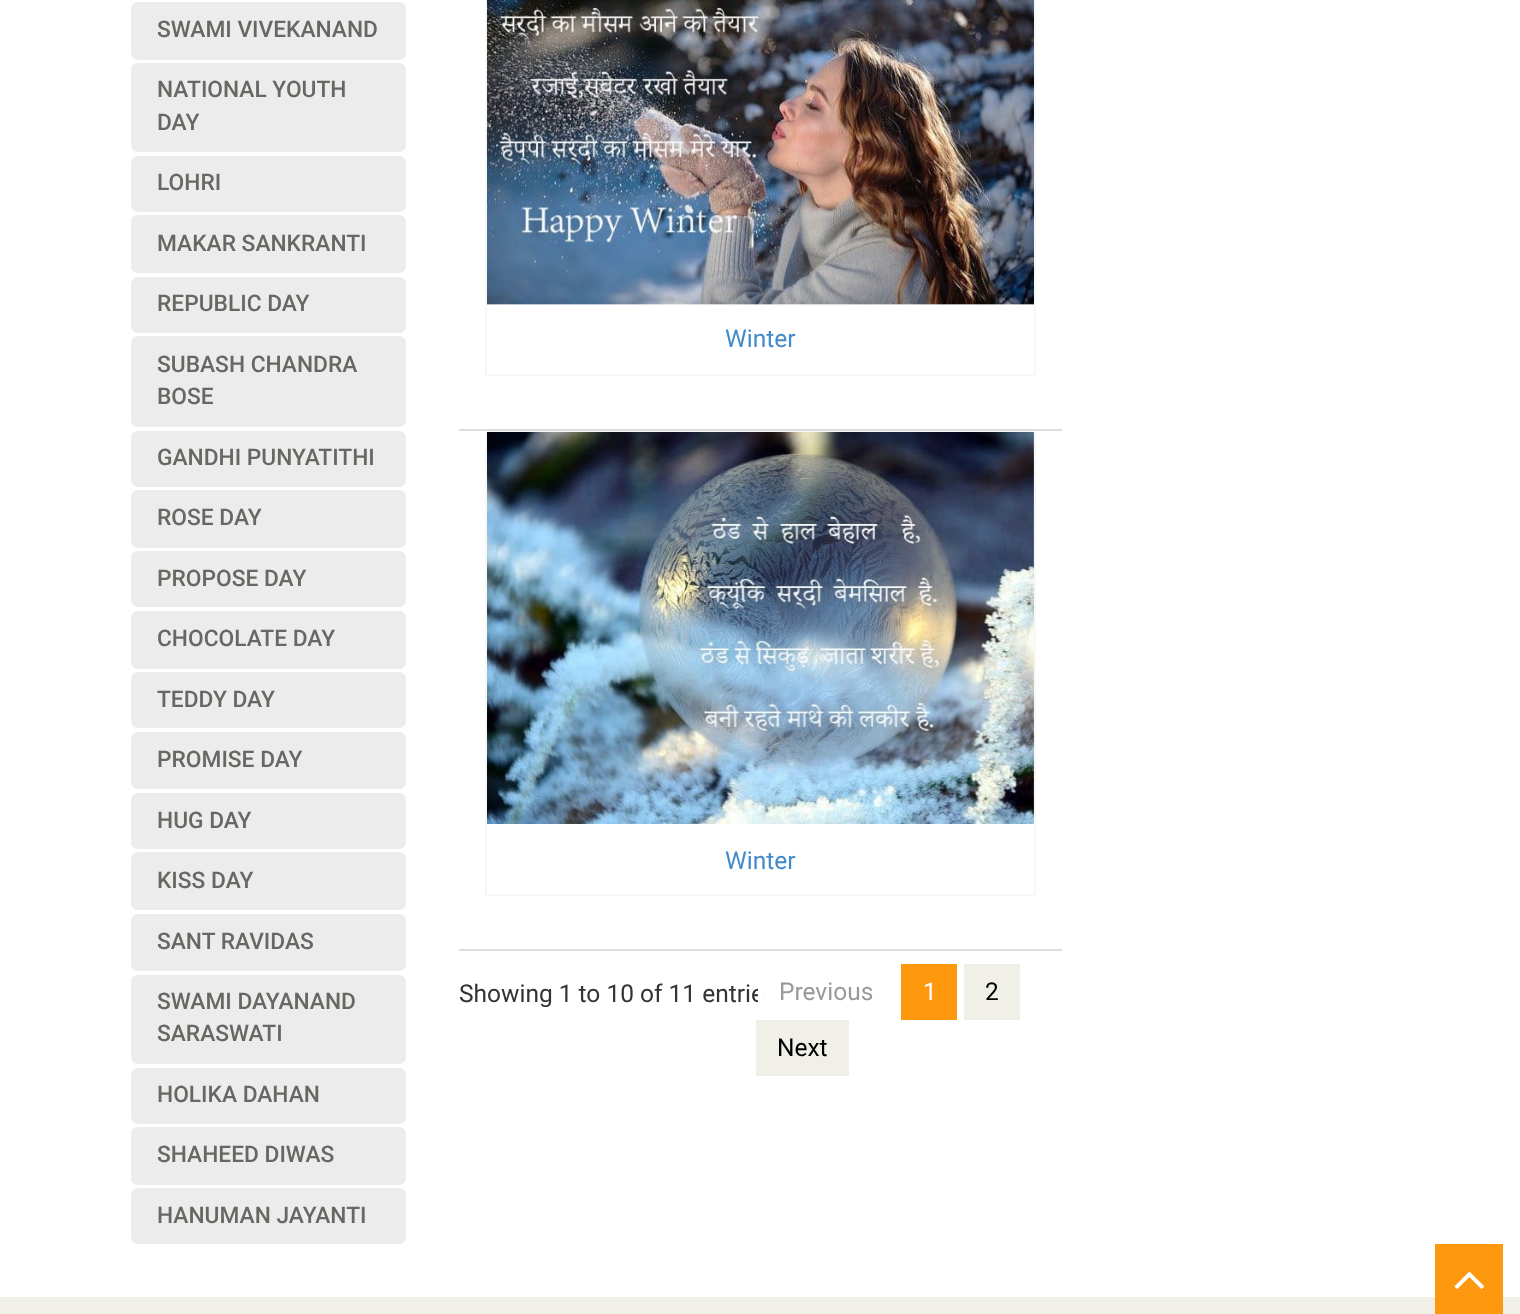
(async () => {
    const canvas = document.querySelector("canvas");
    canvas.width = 1520;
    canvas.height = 1314;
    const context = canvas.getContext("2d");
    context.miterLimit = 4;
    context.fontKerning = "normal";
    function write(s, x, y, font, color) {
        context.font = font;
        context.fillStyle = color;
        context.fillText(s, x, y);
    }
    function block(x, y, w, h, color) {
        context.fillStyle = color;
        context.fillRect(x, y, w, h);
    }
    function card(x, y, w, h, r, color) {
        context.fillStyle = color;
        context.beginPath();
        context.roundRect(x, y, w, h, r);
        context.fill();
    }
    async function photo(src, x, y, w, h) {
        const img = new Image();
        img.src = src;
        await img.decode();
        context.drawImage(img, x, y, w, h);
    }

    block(0, 0, 1520, 1314, "rgb(255, 255, 255)");
    card(131, 2, 275, 58, 7, "rgb(236, 236, 236)");
    write("SWAMI VIVEKANAND", 157, 37, "500 22.75px Roboto", "rgb(105, 103, 99)");
    card(131, 63, 275, 89, 7, "rgb(236, 236, 236)");
    write("NATIONAL YOUTH", 157, 97, "500 22.75px Roboto", "rgb(105, 103, 99)");
    write("DAY", 157, 130, "500 22.75px Roboto", "rgb(105, 103, 99)");
    card(131, 156, 275, 56, 7, "rgb(236, 236, 236)");
    write("LOHRI", 157, 190, "500 22.75px Roboto", "rgb(105, 103, 99)");
    card(131, 215, 275, 58, 7, "rgb(236, 236, 236)");
    write("MAKAR SANKRANTI", 157, 251, "500 22.75px Roboto", "rgb(105, 103, 99)");
    card(131, 277, 275, 56, 7, "rgb(236, 236, 236)");
    write("REPUBLIC DAY", 157, 311, "500 22.75px Roboto", "rgb(105, 103, 99)");
    card(131, 336, 275, 91, 7, "rgb(236, 236, 236)");
    write("SUBASH CHANDRA", 157, 372, "500 22.75px Roboto", "rgb(105, 103, 99)");
    write("BOSE", 157, 404, "500 22.75px Roboto", "rgb(105, 103, 99)");
    card(131, 431, 275, 56, 7, "rgb(236, 236, 236)");
    write("GANDHI PUNYATITHI", 157, 465, "500 22.75px Roboto", "rgb(105, 103, 99)");
    card(131, 490, 275, 58, 7, "rgb(236, 236, 236)");
    write("ROSE DAY", 157, 525, "500 22.75px Roboto", "rgb(105, 103, 99)");
    card(131, 551, 275, 56, 7, "rgb(236, 236, 236)");
    write("PROPOSE DAY", 157, 586, "500 22.75px Roboto", "rgb(105, 103, 99)");
    card(131, 611, 275, 58, 7, "rgb(236, 236, 236)");
    write("CHOCOLATE DAY", 157, 646, "500 22.75px Roboto", "rgb(105, 103, 99)");
    card(131, 672, 275, 56, 7, "rgb(236, 236, 236)");
    write("TEDDY DAY", 157, 707, "500 22.75px Roboto", "rgb(105, 103, 99)");
    card(131, 732, 275, 57, 7, "rgb(236, 236, 236)");
    write("PROMISE DAY", 157, 767, "500 22.75px Roboto", "rgb(105, 103, 99)");
    card(131, 793, 275, 56, 7, "rgb(236, 236, 236)");
    write("HUG DAY", 157, 828, "500 22.75px Roboto", "rgb(105, 103, 99)");
    card(131, 852, 275, 58, 7, "rgb(236, 236, 236)");
    write("KISS DAY", 157, 888, "500 22.75px Roboto", "rgb(105, 103, 99)");
    card(131, 914, 275, 57, 7, "rgb(236, 236, 236)");
    write("SANT RAVIDAS", 157, 949, "500 22.75px Roboto", "rgb(105, 103, 99)");
    card(131, 975, 275, 89, 7, "rgb(236, 236, 236)");
    write("SWAMI DAYANAND", 157, 1009, "500 22.75px Roboto", "rgb(105, 103, 99)");
    write("SARASWATI", 157, 1041, "500 22.75px Roboto", "rgb(105, 103, 99)");
    card(131, 1068, 275, 56, 7, "rgb(236, 236, 236)");
    write("HOLIKA DAHAN", 157, 1102, "500 22.75px Roboto", "rgb(105, 103, 99)");
    card(131, 1127, 275, 58, 7, "rgb(236, 236, 236)");
    write("SHAHEED DIWAS", 157, 1162, "500 22.75px Roboto", "rgb(105, 103, 99)");
    card(131, 1188, 275, 56, 7, "rgb(236, 236, 236)");
    write("HANUMAN JAYANTI", 157, 1223, "500 22.75px Roboto", "rgb(105, 103, 99)");
    block(459, 949, 603, 2, "rgb(221, 221, 221)");
    context.strokeStyle = "rgb(247, 247, 245)";
    context.lineWidth = 2;
    context.strokeRect(486, -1, 549, 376);
    await photo("media/1.png", 487, 0, 547, 305);
    write("Winter", 725, 347, "24.5px Roboto", "rgb(66, 139, 202)");
    block(459, 429, 603, 2, "rgb(221, 221, 221)");
    context.strokeRect(486, 432, 549, 463);
    await photo("media/2.png", 487, 432, 547, 392);
    write("Winter", 725, 869, "24.5px Roboto", "rgb(66, 139, 202)");
    write("Showing 1 to 10 of 11 entrie", 459, 1002, "24.5px Roboto", "rgb(51, 51, 51)");
    block(758, 988, 5, 15, "rgb(255, 255, 255)");
    write("Previous", 779, 1000, "24.5px Roboto", "rgb(153, 153, 153)");
    block(901, 964, 56, 56, "rgb(254, 152, 15)");
    write("1", 923, 1000, "24.5px Roboto", "rgb(255, 255, 255)");
    block(964, 964, 56, 56, "rgb(240, 240, 233)");
    write("2", 985, 1000, "24.5px Roboto", "rgb(0, 0, 0)");
    block(756, 1020, 93, 56, "rgb(240, 240, 233)");
    write("Next", 777, 1056, "24.5px Roboto", "rgb(0, 0, 0)");
    block(0, 1297, 1520, 17, "rgb(240, 240, 233)");
    block(1435, 1244, 68, 70, "rgb(254, 152, 15)");
    await photo("media/3.png", 1454, 1271, 30, 18);
})();
